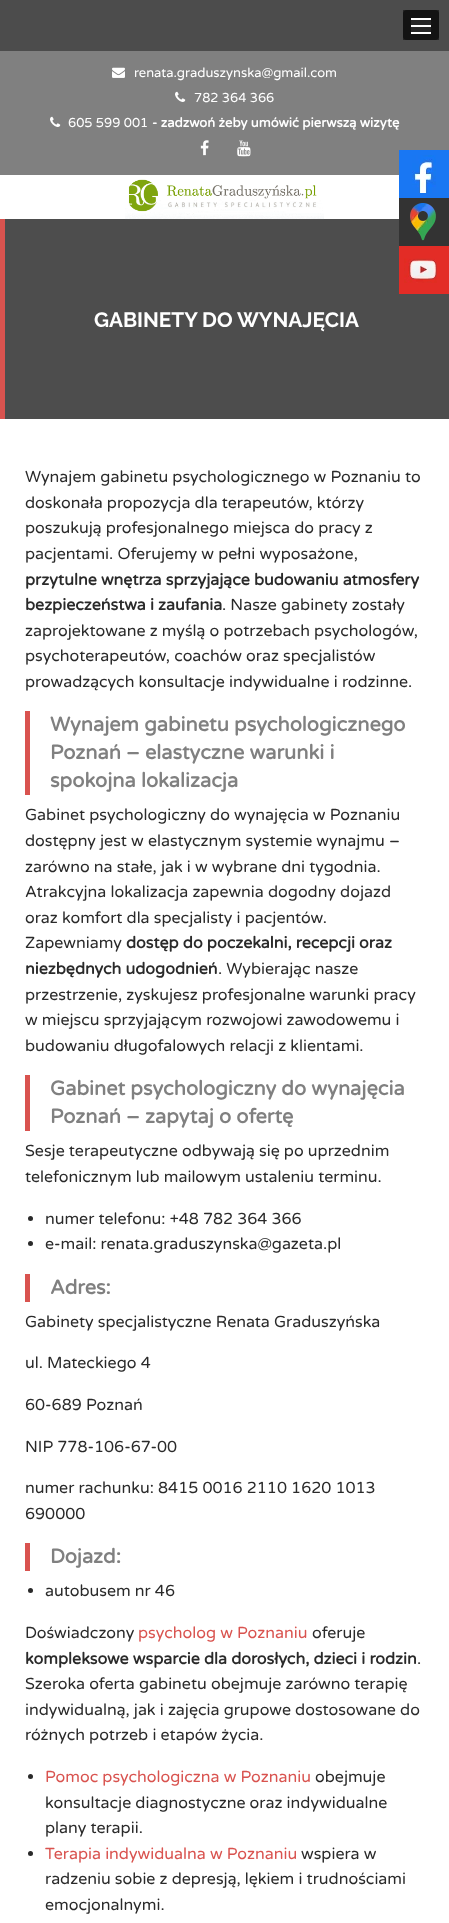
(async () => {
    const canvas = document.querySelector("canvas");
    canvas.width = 449;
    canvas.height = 1923;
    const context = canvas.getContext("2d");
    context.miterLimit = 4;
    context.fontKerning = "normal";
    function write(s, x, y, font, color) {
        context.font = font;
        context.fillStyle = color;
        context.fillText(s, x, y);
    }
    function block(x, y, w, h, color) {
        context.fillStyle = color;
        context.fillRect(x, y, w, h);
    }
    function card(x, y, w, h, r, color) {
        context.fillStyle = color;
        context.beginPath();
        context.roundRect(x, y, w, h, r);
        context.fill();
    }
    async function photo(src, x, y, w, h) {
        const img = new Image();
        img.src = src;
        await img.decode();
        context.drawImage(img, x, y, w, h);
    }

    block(0, 0, 449, 1923, "rgb(255, 255, 255)");
    block(0, 0, 449, 51, "rgb(76, 76, 76)");
    card(403, 10, 36, 30, 4, "rgb(38, 38, 38)");
    context.beginPath();
    context.rect(407, 14, 28, 22);
    context.strokeStyle = "rgba(0, 0, 0, 0.5)";
    context.lineWidth = 8;
    context.stroke();
    block(411, 32, 20, 2, "rgb(255, 255, 255)");
    block(411, 25, 20, 2, "rgb(255, 255, 255)");
    block(411, 18, 20, 2, "rgb(255, 255, 255)");
    block(0, 51, 449, 124, "rgb(128, 128, 128)");
    await photo("media/1.png", 112, 67, 13, 11);
    write("renata.graduszynska@gmail.com", 134, 77, "13px Varela Round", "rgb(255, 255, 255)");
    await photo("media/2.png", 175, 91, 11, 11);
    write("782 364 366", 194, 102, "13px Varela Round", "rgb(255, 255, 255)");
    await photo("media/2.png", 50, 116, 11, 11);
    write("605 599 001", 68, 127, "13px Varela Round", "rgb(255, 255, 255)");
    write("- zadzwoń żeby umówić pierwszą wizytę", 152, 127, "bold 13px Varela Round", "rgb(255, 255, 255)");
    await photo("media/3.png", 200, 140, 9, 16);
    await photo("media/4.png", 237, 140, 14, 17);
    block(5, 219, 444, 200, "rgb(77, 77, 77)");
    await photo("media/5.png", 125, 179, 199, 41);
    block(0, 219, 5, 200, "rgb(217, 83, 79)");
    write("GABINETY DO WYNAJĘCIA", 94, 327, "bold 20.75px Raleway", "rgb(255, 255, 255)");
    write("Wynajem gabinetu psychologicznego w Poznaniu to", 25, 482, "16px Varela Round", "rgb(42, 42, 42)");
    write("doskonała propozycja dla terapeutów, którzy", 25, 508, "16px Varela Round", "rgb(42, 42, 42)");
    write("poszukują profesjonalnego miejsca do pracy z", 25, 533, "16px Varela Round", "rgb(42, 42, 42)");
    write("pacjentami. Oferujemy w pełni wyposażone,", 25, 559, "16px Varela Round", "rgb(42, 42, 42)");
    write("przytulne wnętrza sprzyjające budowaniu atmosfery", 25, 585, "bold 16px Varela Round", "rgb(42, 42, 42)");
    write("bezpieczeństwa i zaufania", 25, 610, "bold 16px Varela Round", "rgb(42, 42, 42)");
    write(". Nasze gabinety zostały", 222, 610, "16px Varela Round", "rgb(42, 42, 42)");
    write("zaprojektowane z myślą o potrzebach psychologów,", 25, 636, "16px Varela Round", "rgb(42, 42, 42)");
    write("psychoterapeutów, coachów oraz specjalistów", 25, 661, "16px Varela Round", "rgb(42, 42, 42)");
    write("prowadzących konsultacje indywidualne i rodzinne.", 25, 687, "16px Varela Round", "rgb(42, 42, 42)");
    block(25, 711, 5, 84, "rgb(217, 83, 79)");
    write("Wynajem gabinetu psychologicznego", 50, 731, "bold 20px Varela Round", "rgb(128, 128, 128)");
    write("Poznań – elastyczne warunki i", 50, 759, "bold 20px Varela Round", "rgb(128, 128, 128)");
    write("spokojna lokalizacja", 50, 787, "bold 20px Varela Round", "rgb(128, 128, 128)");
    write("Gabinet psychologiczny do wynajęcia w Poznaniu", 25, 820, "16px Varela Round", "rgb(42, 42, 42)");
    write("dostępny jest w elastycznym systemie wynajmu –", 25, 846, "16px Varela Round", "rgb(42, 42, 42)");
    write("zarówno na stałe, jak i w wybrane dni tygodnia.", 25, 872, "16px Varela Round", "rgb(42, 42, 42)");
    write("Atrakcyjna lokalizacja zapewnia dogodny dojazd", 25, 897, "16px Varela Round", "rgb(42, 42, 42)");
    write("oraz komfort dla specjalisty i pacjentów.", 25, 923, "16px Varela Round", "rgb(42, 42, 42)");
    write("Zapewniamy", 25, 948, "16px Varela Round", "rgb(42, 42, 42)");
    write("dostęp do poczekalni, recepcji oraz", 126, 948, "bold 16px Varela Round", "rgb(42, 42, 42)");
    write("niezbędnych udogodnień", 25, 974, "bold 16px Varela Round", "rgb(42, 42, 42)");
    write(". Wybierając nasze", 218, 974, "16px Varela Round", "rgb(42, 42, 42)");
    write("przestrzenie, zyskujesz profesjonalne warunki pracy", 25, 1000, "16px Varela Round", "rgb(42, 42, 42)");
    write("w miejscu sprzyjającym rozwojowi zawodowemu i", 25, 1025, "16px Varela Round", "rgb(42, 42, 42)");
    write("budowaniu długofalowych relacji z klientami.", 25, 1051, "16px Varela Round", "rgb(42, 42, 42)");
    block(25, 1075, 5, 56, "rgb(217, 83, 79)");
    write("Gabinet psychologiczny do wynajęcia", 50, 1095, "bold 20px Varela Round", "rgb(128, 128, 128)");
    write("Poznań – zapytaj o ofertę", 50, 1123, "bold 20px Varela Round", "rgb(128, 128, 128)");
    write("Sesje terapeutyczne odbywają się po uprzednim", 25, 1156, "16px Varela Round", "rgb(42, 42, 42)");
    write("telefonicznym lub mailowym ustaleniu terminu.", 25, 1182, "16px Varela Round", "rgb(42, 42, 42)");
    context.beginPath();
    context.arc(30.5, 1218.5, 2.5, 0, Math.PI * 2);
    context.fill();
    write("numer telefonu: +48 782 364 366", 45, 1224, "16px Varela Round", "rgb(42, 42, 42)");
    context.beginPath();
    context.arc(30.5, 1243.5, 2.5, 0, Math.PI * 2);
    context.fill();
    write("e-mail: renata.graduszynska@gazeta.pl", 45, 1249, "16px Varela Round", "rgb(42, 42, 42)");
    block(25, 1274, 5, 28, "rgb(217, 83, 79)");
    write("Adres:", 50, 1294, "bold 20px Varela Round", "rgb(128, 128, 128)");
    write("Gabinety specjalistyczne Renata Graduszyńska", 25, 1327, "16px Varela Round", "rgb(42, 42, 42)");
    write("ul. Mateckiego 4", 25, 1368, "16px Varela Round", "rgb(42, 42, 42)");
    write("60-689 Poznań", 25, 1410, "16px Varela Round", "rgb(42, 42, 42)");
    write("NIP 778-106-67-00", 25, 1452, "16px Varela Round", "rgb(42, 42, 42)");
    write("numer rachunku: 8415 0016 2110 1620 1013", 25, 1493, "16px Varela Round", "rgb(42, 42, 42)");
    write("690000", 25, 1519, "16px Varela Round", "rgb(42, 42, 42)");
    block(25, 1543, 5, 28, "rgb(217, 83, 79)");
    write("Dojazd:", 50, 1563, "bold 20px Varela Round", "rgb(128, 128, 128)");
    context.fillStyle = "rgb(42, 42, 42)";
    context.beginPath();
    context.arc(30.5, 1590.5, 2.5, 0, Math.PI * 2);
    context.fill();
    write("autobusem nr 46", 45, 1596, "16px Varela Round", "rgb(42, 42, 42)");
    write("Doświadczony", 25, 1638, "16px Varela Round", "rgb(42, 42, 42)");
    write("psycholog w Poznaniu", 138, 1638, "16px Varela Round", "rgb(217, 83, 79)");
    write("oferuje", 312, 1638, "16px Varela Round", "rgb(42, 42, 42)");
    write("kompleksowe wsparcie dla dorosłych, dzieci i rodzin", 25, 1664, "bold 16px Varela Round", "rgb(42, 42, 42)");
    write(".", 417, 1664, "16px Varela Round", "rgb(42, 42, 42)");
    write("Szeroka oferta gabinetu obejmuje zarówno terapię", 25, 1689, "16px Varela Round", "rgb(42, 42, 42)");
    write("indywidualną, jak i zajęcia grupowe dostosowane do", 25, 1715, "16px Varela Round", "rgb(42, 42, 42)");
    write("różnych potrzeb i etapów życia.", 25, 1740, "16px Varela Round", "rgb(42, 42, 42)");
    context.beginPath();
    context.arc(30.5, 1776.5, 2.5, 0, Math.PI * 2);
    context.fill();
    write("Pomoc psychologiczna w Poznaniu", 45, 1782, "16px Varela Round", "rgb(217, 83, 79)");
    write("obejmuje", 315, 1782, "16px Varela Round", "rgb(42, 42, 42)");
    write("konsultacje diagnostyczne oraz indywidualne", 45, 1808, "16px Varela Round", "rgb(42, 42, 42)");
    write("plany terapii.", 45, 1833, "16px Varela Round", "rgb(42, 42, 42)");
    context.beginPath();
    context.arc(30.5, 1853.5, 2.5, 0, Math.PI * 2);
    context.fill();
    write("Terapia indywidualna w Poznaniu", 45, 1859, "16px Varela Round", "rgb(217, 83, 79)");
    write("wspiera w", 301, 1859, "16px Varela Round", "rgb(42, 42, 42)");
    write("radzeniu sobie z depresją, lękiem i trudnościami", 45, 1884, "16px Varela Round", "rgb(42, 42, 42)");
    write("emocjonalnymi.", 45, 1910, "16px Varela Round", "rgb(42, 42, 42)");
    block(399, 150, 50, 48, "rgb(25, 119, 243)");
    await photo("media/6.png", 412, 155, 24, 38);
    block(399, 198, 50, 48, "rgb(51, 51, 51)");
    await photo("media/7.png", 410, 203, 26, 38);
    block(399, 246, 50, 48, "rgb(227, 44, 38)");
    await photo("media/8.png", 404, 258, 33, 25);
})();
